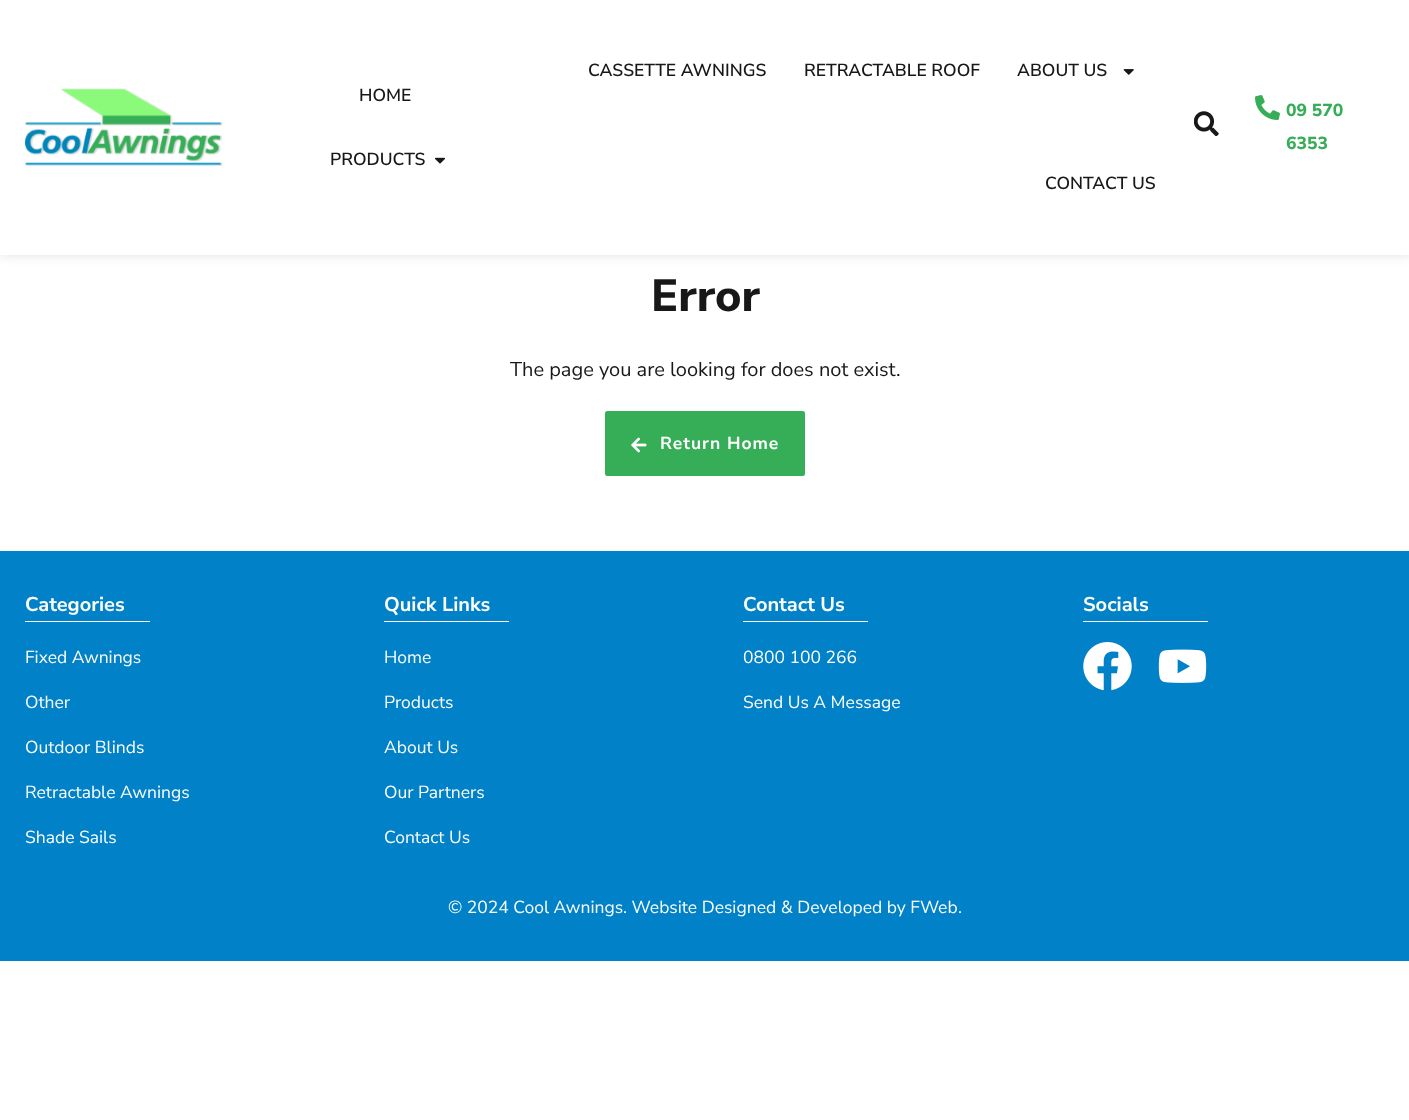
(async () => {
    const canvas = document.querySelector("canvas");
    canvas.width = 1409;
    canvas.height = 1120;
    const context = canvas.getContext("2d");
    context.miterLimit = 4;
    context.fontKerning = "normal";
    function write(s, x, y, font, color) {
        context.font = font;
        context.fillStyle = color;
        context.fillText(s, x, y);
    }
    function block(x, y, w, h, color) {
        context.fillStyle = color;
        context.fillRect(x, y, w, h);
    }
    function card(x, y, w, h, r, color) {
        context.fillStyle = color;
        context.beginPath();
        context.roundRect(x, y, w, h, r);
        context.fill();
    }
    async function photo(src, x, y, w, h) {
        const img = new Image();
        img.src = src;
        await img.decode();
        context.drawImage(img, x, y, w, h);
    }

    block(0, 0, 1409, 1120, "rgb(255, 255, 255)");
    context.fillStyle = "rgba(0, 0, 0, 0.12)";
    context.filter = "blur(6px)";
    context.beginPath();
    context.rect(0, 0, 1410, 255);
    context.fill();
    context.filter = "none";
    block(0, 0, 1409, 255, "rgb(255, 255, 255)");
    await photo("media/1.png", 25, 88, 198, 78);
    write("HOME", 359, 101, "600 17.5px Nunito Sans", "rgb(24, 24, 24)");
    write("PRODUCTS", 330, 165, "600 17.5px Nunito Sans", "rgb(24, 24, 24)");
    await photo("media/2.png", 434, 157, 12, 7);
    write("CASSETTE AWNINGS", 588, 76, "600 17.5px Nunito Sans", "rgb(24, 24, 24)");
    write("RETRACTABLE ROOF", 804, 76, "600 17.5px Nunito Sans", "rgb(24, 24, 24)");
    write("ABOUT US", 1017, 76, "600 17.5px Nunito Sans", "rgb(24, 24, 24)");
    await photo("media/3.png", 1123, 69, 11, 6);
    write("CONTACT US", 1045, 189, "600 17.5px Nunito Sans", "rgb(24, 24, 24)");
    await photo("media/4.png", 1194, 111, 25, 25);
    await photo("media/5.png", 1255, 95, 25, 25);
    write("09 570", 1286, 116, "800 17.5px Nunito Sans", "rgb(54, 173, 87)");
    write("6353", 1286, 149, "800 17.5px Nunito Sans", "rgb(54, 173, 87)");
    write("Error", 651, 311, "800 45px Nunito Sans", "rgb(24, 24, 24)");
    write("The page you are looking for does not exist.", 510, 376, "20px Nunito Sans", "rgb(24, 24, 24)");
    card(605, 411, 200, 65, 2.5, "rgb(54, 173, 87)");
    await photo("media/6.png", 631, 437, 16, 16);
    context.letterSpacing = "1px";
    write("Return Home", 660, 449, "bold 17.5px Nunito Sans", "rgb(255, 255, 255)");
    block(0, 551, 1409, 410, "rgb(0, 129, 200)");
    context.letterSpacing = "0px";
    write("Categories", 25, 611, "bold 20px Nunito Sans", "rgb(255, 255, 255)");
    block(25, 621, 125, 1, "rgb(255, 255, 255)");
    write("Fixed Awnings", 25, 663, "17.5px Nunito Sans", "rgb(255, 255, 255)");
    write("Other", 25, 708, "17.5px Nunito Sans", "rgb(255, 255, 255)");
    write("Outdoor Blinds", 25, 753, "17.5px Nunito Sans", "rgb(255, 255, 255)");
    write("Retractable Awnings", 25, 798, "17.5px Nunito Sans", "rgb(255, 255, 255)");
    write("Shade Sails", 25, 843, "17.5px Nunito Sans", "rgb(255, 255, 255)");
    write("Quick Links", 384, 611, "bold 20px Nunito Sans", "rgb(255, 255, 255)");
    block(384, 621, 125, 1, "rgb(255, 255, 255)");
    write("Home", 384, 663, "17.5px Nunito Sans", "rgb(255, 255, 255)");
    write("Products", 384, 708, "17.5px Nunito Sans", "rgb(255, 255, 255)");
    write("About Us", 384, 753, "17.5px Nunito Sans", "rgb(255, 255, 255)");
    write("Our Partners", 384, 798, "17.5px Nunito Sans", "rgb(255, 255, 255)");
    write("Contact Us", 384, 843, "17.5px Nunito Sans", "rgb(255, 255, 255)");
    write("Contact Us", 743, 611, "bold 20px Nunito Sans", "rgb(255, 255, 255)");
    block(743, 621, 125, 1, "rgb(255, 255, 255)");
    write("0800 100 266", 743, 663, "17.5px Nunito Sans", "rgb(255, 255, 255)");
    write("Send Us A Message", 743, 708, "17.5px Nunito Sans", "rgb(255, 255, 255)");
    write("Socials", 1083, 611, "bold 20px Nunito Sans", "rgb(255, 255, 255)");
    block(1083, 621, 125, 1, "rgb(255, 255, 255)");
    await photo("media/7.png", 1083, 642, 49, 49);
    await photo("media/8.png", 1158, 649, 49, 34);
    write("© 2024 Cool Awnings. Website Designed & Developed by FWeb", 448, 913, "17.5px Nunito Sans", "rgb(255, 255, 255)");
    write(".", 958, 913, "17.5px Nunito Sans", "rgb(255, 255, 255)");
})();
